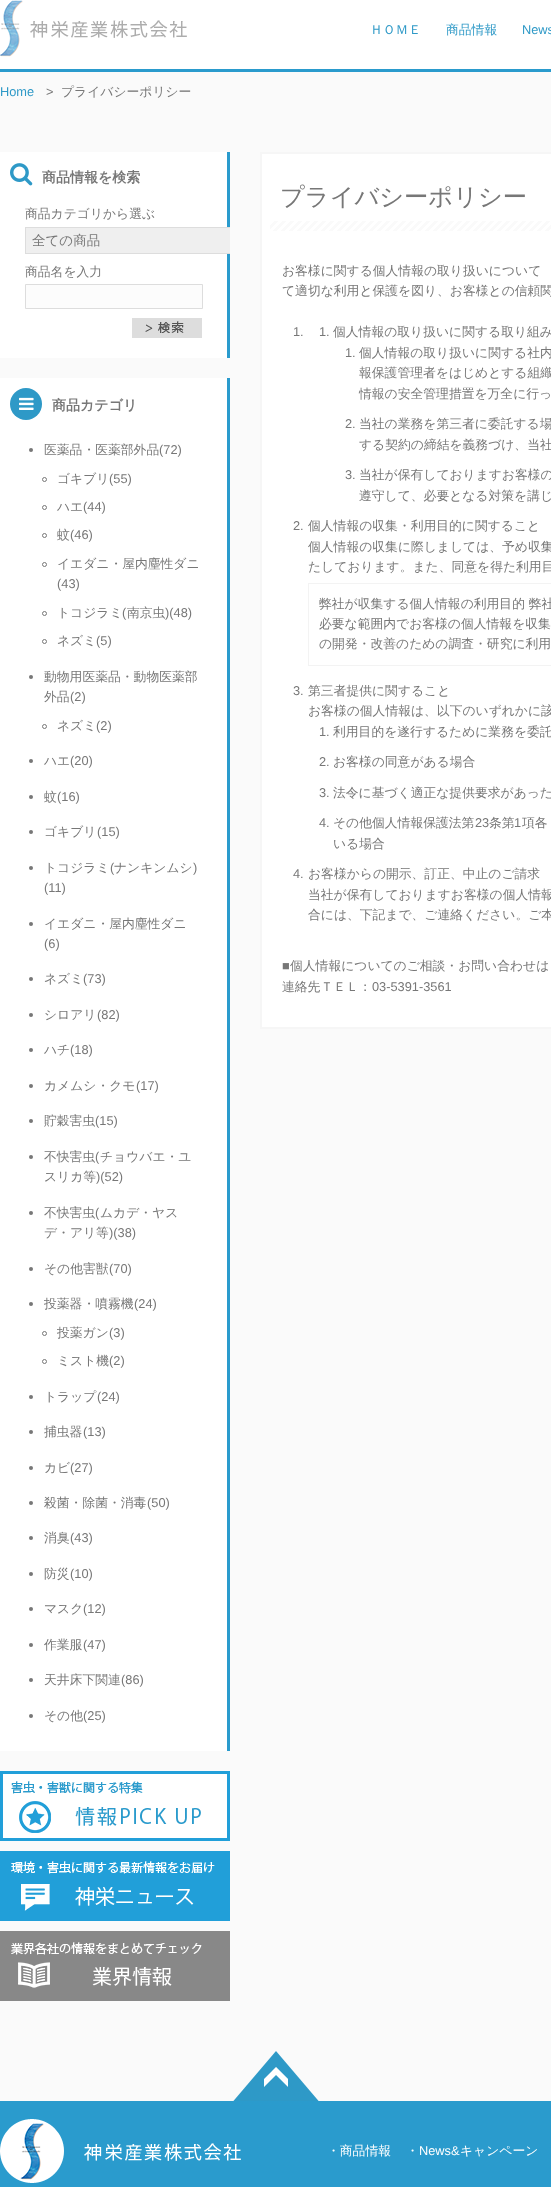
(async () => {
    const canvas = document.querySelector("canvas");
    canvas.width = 551;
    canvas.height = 2187;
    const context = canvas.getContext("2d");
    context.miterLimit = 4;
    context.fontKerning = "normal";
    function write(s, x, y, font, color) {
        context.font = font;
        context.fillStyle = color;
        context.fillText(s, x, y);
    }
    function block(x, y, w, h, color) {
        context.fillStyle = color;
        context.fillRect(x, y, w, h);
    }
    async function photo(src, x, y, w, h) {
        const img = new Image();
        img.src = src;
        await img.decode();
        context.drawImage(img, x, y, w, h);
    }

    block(0, 0, 551, 2187, "rgb(250, 250, 250)");
    block(0, 0, 551, 69, "rgb(255, 255, 255)");
    block(0, 69, 551, 3, "rgb(42, 155, 205)");
    await photo("media/1.png", 0, 0, 187, 57);
    write("ＨＯＭＥ", 370, 34, "500 12.8px WenQuanYi Zen Hei", "rgb(46, 153, 199)");
    write("商品情報", 446, 34, "500 12.8px WenQuanYi Zen Hei", "rgb(46, 153, 199)");
    write("News", 522, 34, "12.8px Liberation Sans", "rgb(46, 153, 199)");
    write("Home", 0, 96, "12.8px Liberation Sans", "rgb(46, 153, 199)");
    write(">", 46, 96, "12.8px Liberation Sans", "rgb(119, 119, 119)");
    write("プライバシーポリシー", 61, 96, "500 12.8px WenQuanYi Zen Hei", "rgb(119, 119, 119)");
    block(0, 152, 227, 206, "rgb(255, 255, 255)");
    block(227, 152, 3, 206, "rgb(42, 155, 205)");
    await photo("media/2.png", 10, 163, 23, 23);
    write("商品情報を検索", 42, 182, "bold 14px WenQuanYi Zen Hei", "rgb(119, 119, 119)");
    write("商品カテゴリから選ぶ", 25, 218, "500 12.8px WenQuanYi Zen Hei", "rgb(119, 119, 119)");
    block(26, 228, 204, 25, "rgb(239, 239, 239)");
    context.fillStyle = "rgb(255, 255, 255)";
    context.beginPath();
    context.rect(261, 153, 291, 875);
    context.fill();
    context.strokeStyle = "rgb(246, 246, 246)";
    context.lineWidth = 2;
    context.stroke();
    await photo("media/8.png", 270, 221, 281, 10);
    context.save();
    context.beginPath();
    context.rect(0, 152, 230, 1859);
    context.clip();
    context.strokeStyle = "rgb(221, 221, 221)";
    context.lineWidth = 1;
    context.strokeRect(25.5, 227.5, 245, 26);
    context.restore();
    write("全ての商品", 32, 245, "500 13.5px WenQuanYi Zen Hei", "rgb(119, 119, 119)");
    write("商品名を入力", 25, 276, "500 12.8px WenQuanYi Zen Hei", "rgb(119, 119, 119)");
    context.fillStyle = "rgb(252, 252, 252)";
    context.beginPath();
    context.rect(25.5, 284.5, 177, 24);
    context.fill();
    context.strokeStyle = "rgb(221, 221, 221)";
    context.lineWidth = 1;
    context.stroke();
    await photo("media/3.png", 132, 318, 70, 20);
    block(0, 378, 227, 1373, "rgb(255, 255, 255)");
    block(227, 378, 3, 1373, "rgb(42, 155, 205)");
    context.fillStyle = "rgb(46, 153, 199)";
    context.beginPath();
    context.arc(26, 404, 16, 0, Math.PI * 2);
    context.fill();
    await photo("media/4.png", 19, 397, 15, 13);
    write("商品カテゴリ", 52, 410, "bold 14px WenQuanYi Zen Hei", "rgb(119, 119, 119)");
    context.beginPath();
    context.arc(31, 450, 2, 0, Math.PI * 2);
    context.fill();
    write("医薬品・医薬部外品", 44, 454, "500 12.8px WenQuanYi Zen Hei", "rgb(119, 119, 119)");
    write("(72)", 159, 454, "12.8px Liberation Sans", "rgb(119, 119, 119)");
    context.beginPath();
    context.arc(44.5, 479.5, 2, 0, Math.PI * 2);
    context.strokeStyle = "rgb(119, 119, 119)";
    context.stroke();
    write("ゴキブリ", 57, 483, "500 12.8px WenQuanYi Zen Hei", "rgb(119, 119, 119)");
    write("(55)", 109, 483, "12.8px Liberation Sans", "rgb(119, 119, 119)");
    context.beginPath();
    context.arc(44.5, 507.5, 2, 0, Math.PI * 2);
    context.stroke();
    write("ハエ", 57, 511, "500 12.8px WenQuanYi Zen Hei", "rgb(119, 119, 119)");
    write("(44)", 83, 511, "12.8px Liberation Sans", "rgb(119, 119, 119)");
    context.beginPath();
    context.arc(44.5, 535.5, 2, 0, Math.PI * 2);
    context.stroke();
    write("蚊", 57, 539, "500 12.8px WenQuanYi Zen Hei", "rgb(119, 119, 119)");
    write("(46)", 70, 539, "12.8px Liberation Sans", "rgb(119, 119, 119)");
    context.beginPath();
    context.arc(44.5, 564.5, 2, 0, Math.PI * 2);
    context.stroke();
    write("イエダニ・屋内塵性ダニ", 57, 568, "500 12.8px WenQuanYi Zen Hei", "rgb(119, 119, 119)");
    write("(43)", 57, 588, "12.8px Liberation Sans", "rgb(119, 119, 119)");
    context.beginPath();
    context.arc(44.5, 613.5, 2, 0, Math.PI * 2);
    context.stroke();
    write("トコジラミ", 57, 617, "500 12.8px WenQuanYi Zen Hei", "rgb(119, 119, 119)");
    write("(", 122, 617, "12.8px Liberation Sans", "rgb(119, 119, 119)");
    write("南京虫", 127, 617, "500 12.8px WenQuanYi Zen Hei", "rgb(119, 119, 119)");
    write(")(48)", 165, 617, "12.8px Liberation Sans", "rgb(119, 119, 119)");
    context.beginPath();
    context.arc(44.5, 641.5, 2, 0, Math.PI * 2);
    context.stroke();
    write("ネズミ", 57, 645, "500 12.8px WenQuanYi Zen Hei", "rgb(119, 119, 119)");
    write("(5)", 96, 645, "12.8px Liberation Sans", "rgb(119, 119, 119)");
    context.beginPath();
    context.arc(31, 677, 2, 0, Math.PI * 2);
    context.fill();
    write("動物用医薬品・動物医薬部", 44, 681, "500 12.8px WenQuanYi Zen Hei", "rgb(119, 119, 119)");
    write("外品", 44, 701, "500 12.8px WenQuanYi Zen Hei", "rgb(119, 119, 119)");
    write("(2)", 70, 701, "12.8px Liberation Sans", "rgb(119, 119, 119)");
    context.beginPath();
    context.arc(44.5, 726.5, 2, 0, Math.PI * 2);
    context.stroke();
    write("ネズミ", 57, 730, "500 12.8px WenQuanYi Zen Hei", "rgb(119, 119, 119)");
    write("(2)", 96, 730, "12.8px Liberation Sans", "rgb(119, 119, 119)");
    context.beginPath();
    context.arc(31, 761, 2, 0, Math.PI * 2);
    context.fill();
    write("ハエ", 44, 765, "500 12.8px WenQuanYi Zen Hei", "rgb(119, 119, 119)");
    write("(20)", 70, 765, "12.8px Liberation Sans", "rgb(119, 119, 119)");
    context.beginPath();
    context.arc(31, 797, 2, 0, Math.PI * 2);
    context.fill();
    write("蚊", 44, 801, "500 12.8px WenQuanYi Zen Hei", "rgb(119, 119, 119)");
    write("(16)", 57, 801, "12.8px Liberation Sans", "rgb(119, 119, 119)");
    context.beginPath();
    context.arc(31, 832, 2, 0, Math.PI * 2);
    context.fill();
    write("ゴキブリ", 44, 836, "500 12.8px WenQuanYi Zen Hei", "rgb(119, 119, 119)");
    write("(15)", 97, 836, "12.8px Liberation Sans", "rgb(119, 119, 119)");
    context.beginPath();
    context.arc(31, 868, 2, 0, Math.PI * 2);
    context.fill();
    write("トコジラミ", 44, 872, "500 12.8px WenQuanYi Zen Hei", "rgb(119, 119, 119)");
    write("(", 110, 872, "12.8px Liberation Sans", "rgb(119, 119, 119)");
    write("ナンキンムシ", 114, 872, "500 12.8px WenQuanYi Zen Hei", "rgb(119, 119, 119)");
    write(")", 193, 872, "12.8px Liberation Sans", "rgb(119, 119, 119)");
    write("(11)", 44, 892, "12.8px Liberation Sans", "rgb(119, 119, 119)");
    context.beginPath();
    context.arc(31, 924, 2, 0, Math.PI * 2);
    context.fill();
    write("イエダニ・屋内塵性ダニ", 44, 928, "500 12.8px WenQuanYi Zen Hei", "rgb(119, 119, 119)");
    write("(6)", 44, 948, "12.8px Liberation Sans", "rgb(119, 119, 119)");
    context.beginPath();
    context.arc(31, 979, 2, 0, Math.PI * 2);
    context.fill();
    write("ネズミ", 44, 983, "500 12.8px WenQuanYi Zen Hei", "rgb(119, 119, 119)");
    write("(73)", 83, 983, "12.8px Liberation Sans", "rgb(119, 119, 119)");
    context.beginPath();
    context.arc(31, 1015, 2, 0, Math.PI * 2);
    context.fill();
    write("シロアリ", 44, 1019, "500 12.8px WenQuanYi Zen Hei", "rgb(119, 119, 119)");
    write("(82)", 97, 1019, "12.8px Liberation Sans", "rgb(119, 119, 119)");
    context.beginPath();
    context.arc(31, 1050, 2, 0, Math.PI * 2);
    context.fill();
    write("ハチ", 44, 1054, "500 12.8px WenQuanYi Zen Hei", "rgb(119, 119, 119)");
    write("(18)", 70, 1054, "12.8px Liberation Sans", "rgb(119, 119, 119)");
    context.beginPath();
    context.arc(31, 1086, 2, 0, Math.PI * 2);
    context.fill();
    write("カメムシ・クモ", 44, 1090, "500 12.8px WenQuanYi Zen Hei", "rgb(119, 119, 119)");
    write("(17)", 136, 1090, "12.8px Liberation Sans", "rgb(119, 119, 119)");
    context.beginPath();
    context.arc(31, 1121, 2, 0, Math.PI * 2);
    context.fill();
    write("貯穀害虫", 44, 1125, "500 12.8px WenQuanYi Zen Hei", "rgb(119, 119, 119)");
    write("(15)", 95, 1125, "12.8px Liberation Sans", "rgb(119, 119, 119)");
    context.beginPath();
    context.arc(31, 1157, 2, 0, Math.PI * 2);
    context.fill();
    write("不快害虫", 44, 1161, "500 12.8px WenQuanYi Zen Hei", "rgb(119, 119, 119)");
    write("(", 95, 1161, "12.8px Liberation Sans", "rgb(119, 119, 119)");
    write("チョウバエ・ユ", 100, 1161, "500 12.8px WenQuanYi Zen Hei", "rgb(119, 119, 119)");
    write("スリカ等", 44, 1181, "500 12.8px WenQuanYi Zen Hei", "rgb(119, 119, 119)");
    write(")(52)", 96, 1181, "12.8px Liberation Sans", "rgb(119, 119, 119)");
    context.beginPath();
    context.arc(31, 1213, 2, 0, Math.PI * 2);
    context.fill();
    write("不快害虫", 44, 1217, "500 12.8px WenQuanYi Zen Hei", "rgb(119, 119, 119)");
    write("(", 95, 1217, "12.8px Liberation Sans", "rgb(119, 119, 119)");
    write("ムカデ・ヤス", 100, 1217, "500 12.8px WenQuanYi Zen Hei", "rgb(119, 119, 119)");
    write("デ・アリ等", 44, 1237, "500 12.8px WenQuanYi Zen Hei", "rgb(119, 119, 119)");
    write(")(38)", 109, 1237, "12.8px Liberation Sans", "rgb(119, 119, 119)");
    context.beginPath();
    context.arc(31, 1269, 2, 0, Math.PI * 2);
    context.fill();
    write("その他害獣", 44, 1273, "500 12.8px WenQuanYi Zen Hei", "rgb(119, 119, 119)");
    write("(70)", 109, 1273, "12.8px Liberation Sans", "rgb(119, 119, 119)");
    context.beginPath();
    context.arc(31, 1304, 2, 0, Math.PI * 2);
    context.fill();
    write("投薬器・噴霧機", 44, 1308, "500 12.8px WenQuanYi Zen Hei", "rgb(119, 119, 119)");
    write("(24)", 134, 1308, "12.8px Liberation Sans", "rgb(119, 119, 119)");
    context.beginPath();
    context.arc(44.5, 1333.5, 2, 0, Math.PI * 2);
    context.stroke();
    write("投薬ガン", 57, 1337, "500 12.8px WenQuanYi Zen Hei", "rgb(119, 119, 119)");
    write("(3)", 109, 1337, "12.8px Liberation Sans", "rgb(119, 119, 119)");
    context.beginPath();
    context.arc(44.5, 1361.5, 2, 0, Math.PI * 2);
    context.stroke();
    write("ミスト機", 57, 1365, "500 12.8px WenQuanYi Zen Hei", "rgb(119, 119, 119)");
    write("(2)", 109, 1365, "12.8px Liberation Sans", "rgb(119, 119, 119)");
    context.beginPath();
    context.arc(31, 1397, 2, 0, Math.PI * 2);
    context.fill();
    write("トラップ", 44, 1401, "500 12.8px WenQuanYi Zen Hei", "rgb(119, 119, 119)");
    write("(24)", 97, 1401, "12.8px Liberation Sans", "rgb(119, 119, 119)");
    context.beginPath();
    context.arc(31, 1432, 2, 0, Math.PI * 2);
    context.fill();
    write("捕虫器", 44, 1436, "500 12.8px WenQuanYi Zen Hei", "rgb(119, 119, 119)");
    write("(13)", 83, 1436, "12.8px Liberation Sans", "rgb(119, 119, 119)");
    context.beginPath();
    context.arc(31, 1468, 2, 0, Math.PI * 2);
    context.fill();
    write("カビ", 44, 1472, "500 12.8px WenQuanYi Zen Hei", "rgb(119, 119, 119)");
    write("(27)", 70, 1472, "12.8px Liberation Sans", "rgb(119, 119, 119)");
    context.beginPath();
    context.arc(31, 1503, 2, 0, Math.PI * 2);
    context.fill();
    write("殺菌・除菌・消毒", 44, 1507, "500 12.8px WenQuanYi Zen Hei", "rgb(119, 119, 119)");
    write("(50)", 147, 1507, "12.8px Liberation Sans", "rgb(119, 119, 119)");
    context.beginPath();
    context.arc(31, 1538, 2, 0, Math.PI * 2);
    context.fill();
    write("消臭", 44, 1542, "500 12.8px WenQuanYi Zen Hei", "rgb(119, 119, 119)");
    write("(43)", 70, 1542, "12.8px Liberation Sans", "rgb(119, 119, 119)");
    context.beginPath();
    context.arc(31, 1574, 2, 0, Math.PI * 2);
    context.fill();
    write("防災", 44, 1578, "500 12.8px WenQuanYi Zen Hei", "rgb(119, 119, 119)");
    write("(10)", 70, 1578, "12.8px Liberation Sans", "rgb(119, 119, 119)");
    context.beginPath();
    context.arc(31, 1609, 2, 0, Math.PI * 2);
    context.fill();
    write("マスク", 44, 1613, "500 12.8px WenQuanYi Zen Hei", "rgb(119, 119, 119)");
    write("(12)", 83, 1613, "12.8px Liberation Sans", "rgb(119, 119, 119)");
    context.beginPath();
    context.arc(31, 1645, 2, 0, Math.PI * 2);
    context.fill();
    write("作業服", 44, 1649, "500 12.8px WenQuanYi Zen Hei", "rgb(119, 119, 119)");
    write("(47)", 83, 1649, "12.8px Liberation Sans", "rgb(119, 119, 119)");
    context.beginPath();
    context.arc(31, 1680, 2, 0, Math.PI * 2);
    context.fill();
    write("天井床下関連", 44, 1684, "500 12.8px WenQuanYi Zen Hei", "rgb(119, 119, 119)");
    write("(86)", 121, 1684, "12.8px Liberation Sans", "rgb(119, 119, 119)");
    context.beginPath();
    context.arc(31, 1716, 2, 0, Math.PI * 2);
    context.fill();
    write("その他", 44, 1720, "500 12.8px WenQuanYi Zen Hei", "rgb(119, 119, 119)");
    write("(25)", 83, 1720, "12.8px Liberation Sans", "rgb(119, 119, 119)");
    await photo("media/5.png", 0, 1771, 230, 70);
    await photo("media/6.png", 0, 1851, 230, 70);
    await photo("media/7.png", 0, 1931, 230, 70);
    write("プライバシーポリシー", 280, 205, "500 24.25px WenQuanYi Zen Hei", "rgb(119, 119, 119)");
    write("お客様に関する個人情報の取り扱いについて", 282, 275, "500 12.8px WenQuanYi Zen Hei", "rgb(119, 119, 119)");
    write("て適切な利用と保護を図り、お客様との信頼関", 282, 295, "500 12.8px WenQuanYi Zen Hei", "rgb(119, 119, 119)");
    write("1.", 293, 336, "12.8px Liberation Sans", "rgb(119, 119, 119)");
    write("1.", 319, 336, "12.8px Liberation Sans", "rgb(119, 119, 119)");
    write("個人情報の取り扱いに関する取り組み", 333, 336, "500 12.8px WenQuanYi Zen Hei", "rgb(119, 119, 119)");
    write("1.", 345, 357, "12.8px Liberation Sans", "rgb(119, 119, 119)");
    write("個人情報の取り扱いに関する社内", 359, 357, "500 12.8px WenQuanYi Zen Hei", "rgb(119, 119, 119)");
    write("報保護管理者をはじめとする組織", 359, 377, "500 12.8px WenQuanYi Zen Hei", "rgb(119, 119, 119)");
    write("情報の安全管理措置を万全に行っ", 359, 398, "500 12.8px WenQuanYi Zen Hei", "rgb(119, 119, 119)");
    write("2.", 345, 428, "12.8px Liberation Sans", "rgb(119, 119, 119)");
    write("当社の業務を第三者に委託する場", 359, 428, "500 12.8px WenQuanYi Zen Hei", "rgb(119, 119, 119)");
    write("する契約の締結を義務づけ、当社", 359, 449, "500 12.8px WenQuanYi Zen Hei", "rgb(119, 119, 119)");
    write("3.", 345, 479, "12.8px Liberation Sans", "rgb(119, 119, 119)");
    write("当社が保有しておりますお客様の", 359, 479, "500 12.8px WenQuanYi Zen Hei", "rgb(119, 119, 119)");
    write("遵守して、必要となる対策を講じ", 359, 500, "500 12.8px WenQuanYi Zen Hei", "rgb(119, 119, 119)");
    write("2.", 293, 530, "12.8px Liberation Sans", "rgb(119, 119, 119)");
    write("個人情報の収集・利用目的に関すること", 308, 530, "500 12.8px WenQuanYi Zen Hei", "rgb(119, 119, 119)");
    write("個人情報の収集に際しましては、予め収集", 308, 551, "500 12.8px WenQuanYi Zen Hei", "rgb(119, 119, 119)");
    write("たしております。また、同意を得た利用目", 308, 571, "500 12.8px WenQuanYi Zen Hei", "rgb(119, 119, 119)");
    context.strokeStyle = "rgb(243, 243, 243)";
    context.strokeRect(308.5, 583.5, 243, 82);
    write("弊社が収集する個人情報の利用目的 弊社", 319, 608, "500 12.8px WenQuanYi Zen Hei", "rgb(119, 119, 119)");
    write("必要な範囲内でお客様の個人情報を収集", 319, 628, "500 12.8px WenQuanYi Zen Hei", "rgb(119, 119, 119)");
    write("の開発・改善のための調査・研究に利用", 319, 648, "500 12.8px WenQuanYi Zen Hei", "rgb(119, 119, 119)");
    write("3.", 293, 695, "12.8px Liberation Sans", "rgb(119, 119, 119)");
    write("第三者提供に関すること", 308, 695, "500 12.8px WenQuanYi Zen Hei", "rgb(119, 119, 119)");
    write("お客様の個人情報は、以下のいずれかに該", 308, 715, "500 12.8px WenQuanYi Zen Hei", "rgb(119, 119, 119)");
    write("1.", 319, 736, "12.8px Liberation Sans", "rgb(119, 119, 119)");
    write("利用目的を遂行するために業務を委託", 333, 736, "500 12.8px WenQuanYi Zen Hei", "rgb(119, 119, 119)");
    write("2.", 319, 766, "12.8px Liberation Sans", "rgb(119, 119, 119)");
    write("お客様の同意がある場合", 333, 766, "500 12.8px WenQuanYi Zen Hei", "rgb(119, 119, 119)");
    write("3.", 319, 797, "12.8px Liberation Sans", "rgb(119, 119, 119)");
    write("法令に基づく適正な提供要求があった", 333, 797, "500 12.8px WenQuanYi Zen Hei", "rgb(119, 119, 119)");
    write("4.", 319, 827, "12.8px Liberation Sans", "rgb(119, 119, 119)");
    write("その他個人情報保護法第", 333, 827, "500 12.8px WenQuanYi Zen Hei", "rgb(119, 119, 119)");
    write("23", 475, 827, "12.8px Liberation Sans", "rgb(119, 119, 119)");
    write("条第", 489, 827, "500 12.8px WenQuanYi Zen Hei", "rgb(119, 119, 119)");
    write("1", 514, 827, "12.8px Liberation Sans", "rgb(119, 119, 119)");
    write("項各", 522, 827, "500 12.8px WenQuanYi Zen Hei", "rgb(119, 119, 119)");
    write("いる場合", 333, 848, "500 12.8px WenQuanYi Zen Hei", "rgb(119, 119, 119)");
    write("4.", 293, 878, "12.8px Liberation Sans", "rgb(119, 119, 119)");
    write("お客様からの開示、訂正、中止のご請求", 308, 878, "500 12.8px WenQuanYi Zen Hei", "rgb(119, 119, 119)");
    write("当社が保有しておりますお客様の個人情報", 308, 899, "500 12.8px WenQuanYi Zen Hei", "rgb(119, 119, 119)");
    write("合には、下記まで、ご連絡ください。ご本", 308, 919, "500 12.8px WenQuanYi Zen Hei", "rgb(119, 119, 119)");
    write("■", 282, 970, "12.8px Liberation Sans", "rgb(119, 119, 119)");
    write("個人情報についてのご相談・お問い合わせは", 290, 970, "500 12.8px WenQuanYi Zen Hei", "rgb(119, 119, 119)");
    write("連絡先ＴＥＬ：", 282, 991, "500 12.8px WenQuanYi Zen Hei", "rgb(119, 119, 119)");
    write("03-5391-3561", 372, 991, "12.8px Liberation Sans", "rgb(119, 119, 119)");
    await photo("media/9.png", 233, 2051, 86, 50);
    block(0, 2101, 551, 86, "rgb(42, 155, 205)");
    await photo("media/10.png", 0, 2119, 241, 64);
    write("・商品情報", 327, 2155, "500 12.8px WenQuanYi Zen Hei", "rgb(255, 255, 255)");
    write("・", 406, 2155, "500 12.8px WenQuanYi Zen Hei", "rgb(255, 255, 255)");
    write("News&", 419, 2155, "12.8px Liberation Sans", "rgb(255, 255, 255)");
    write("キャンペーン", 460, 2155, "500 12.8px WenQuanYi Zen Hei", "rgb(255, 255, 255)");
})();
